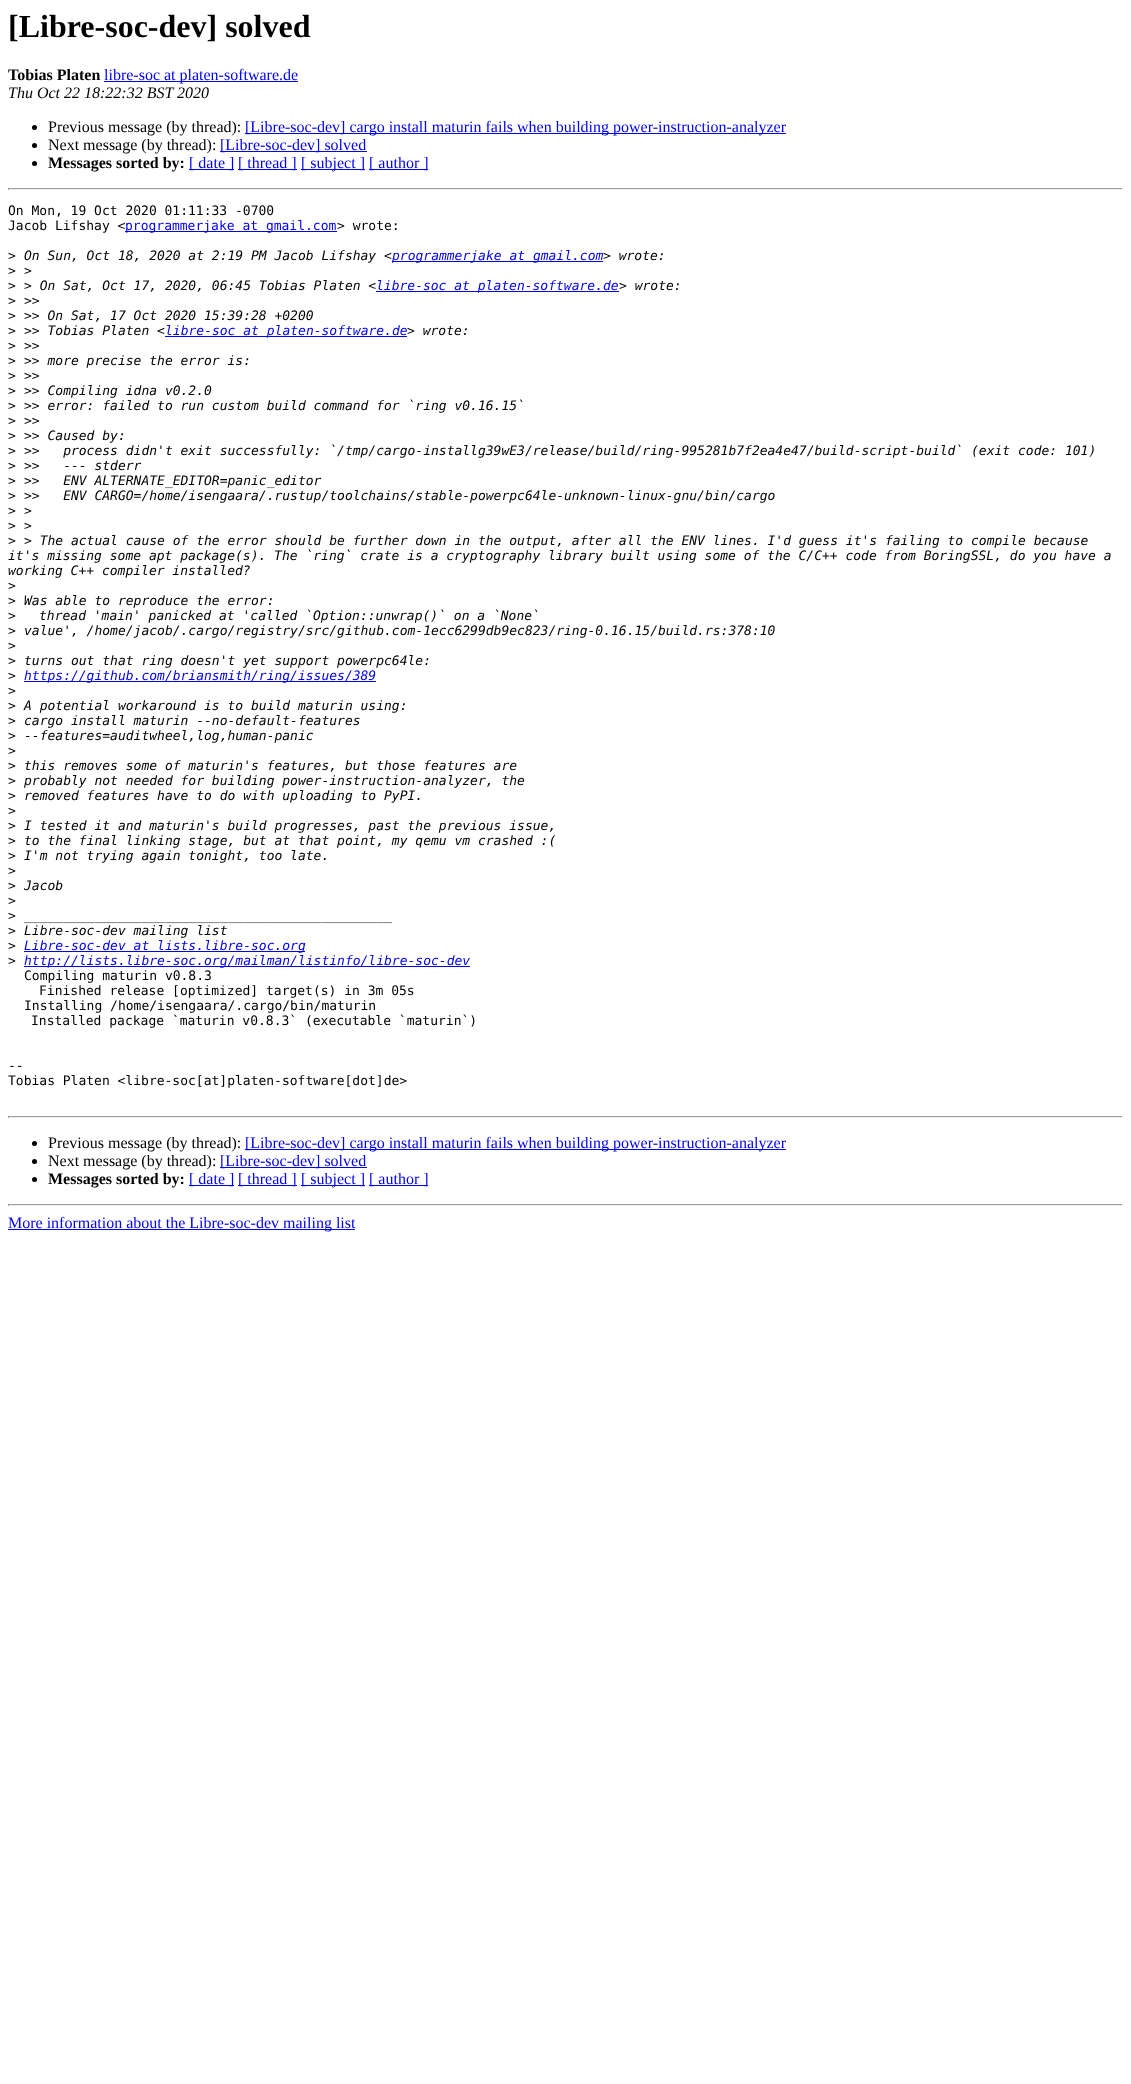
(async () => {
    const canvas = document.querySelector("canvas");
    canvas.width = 1131;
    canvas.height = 2084;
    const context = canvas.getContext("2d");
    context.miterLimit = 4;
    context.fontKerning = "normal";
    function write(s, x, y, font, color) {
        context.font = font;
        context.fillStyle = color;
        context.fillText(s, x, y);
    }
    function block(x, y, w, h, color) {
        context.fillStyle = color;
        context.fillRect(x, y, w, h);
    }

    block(0, 0, 1131, 2084, "rgb(255, 255, 255)");
    write("[Libre-soc-dev] solved", 8, 37, "bold 32px Liberation Serif", "rgb(0, 0, 0)");
    write("Tobias Platen", 8, 80, "bold 16px Liberation Serif", "rgb(0, 0, 0)");
    block(104, 81, 194, 1, "rgb(0, 0, 238)");
    write("libre-soc at platen-software.de", 104, 80, "16px Liberation Serif", "rgb(0, 0, 238)");
    write("Thu Oct 22 18:22:32 BST 2020", 8, 98, "italic 16px Liberation Serif", "rgb(0, 0, 0)");
    context.beginPath();
    context.arc(34.5, 127.5, 2.5, 0, Math.PI * 2);
    context.fill();
    write("Previous message (by thread):", 48, 132, "16px Liberation Serif", "rgb(0, 0, 0)");
    block(245, 133, 541, 1, "rgb(0, 0, 238)");
    write("[Libre-soc-dev] cargo install maturin fails when building power-instruction-analyzer", 245, 132, "16px Liberation Serif", "rgb(0, 0, 238)");
    context.fillStyle = "rgb(0, 0, 0)";
    context.beginPath();
    context.arc(34.5, 145.5, 2.5, 0, Math.PI * 2);
    context.fill();
    write("Next message (by thread):", 48, 150, "16px Liberation Serif", "rgb(0, 0, 0)");
    block(220, 151, 147, 1, "rgb(0, 0, 238)");
    write("[Libre-soc-dev] solved", 220, 150, "16px Liberation Serif", "rgb(0, 0, 238)");
    context.fillStyle = "rgb(0, 0, 0)";
    context.beginPath();
    context.arc(34.5, 163.5, 2.5, 0, Math.PI * 2);
    context.fill();
    write("Messages sorted by:", 48, 168, "bold 16px Liberation Serif", "rgb(0, 0, 0)");
    block(189, 169, 45, 1, "rgb(0, 0, 238)");
    write("[ date ]", 189, 168, "16px Liberation Serif", "rgb(0, 0, 238)");
    block(238, 169, 59, 1, "rgb(0, 0, 238)");
    write("[ thread ]", 238, 168, "16px Liberation Serif", "rgb(0, 0, 238)");
    block(301, 169, 64, 1, "rgb(0, 0, 238)");
    write("[ subject ]", 301, 168, "16px Liberation Serif", "rgb(0, 0, 238)");
    block(369, 169, 59, 1, "rgb(0, 0, 238)");
    write("[ author ]", 369, 168, "16px Liberation Serif", "rgb(0, 0, 238)");
    block(8, 188, 1115, 1, "rgb(159, 159, 159)");
    block(1122, 188, 1, 2, "rgb(238, 238, 238)");
    block(8, 189, 1115, 1, "rgb(238, 238, 238)");
    block(8, 188, 1, 2, "rgb(159, 159, 159)");
    write("On Mon, 19 Oct 2020 01:11:33 -0700", 8, 215, "13px DejaVu Sans Mono", "rgb(0, 0, 0)");
    write("Jacob Lifshay <", 8, 230, "13px DejaVu Sans Mono", "rgb(0, 0, 0)");
    block(125, 231, 212, 1, "rgb(0, 0, 238)");
    write("programmerjake at gmail.com", 125, 230, "13px DejaVu Sans Mono", "rgb(0, 0, 238)");
    write("> wrote:", 337, 230, "13px DejaVu Sans Mono", "rgb(0, 0, 0)");
    write(">", 8, 260, "13px DejaVu Sans Mono", "rgb(0, 0, 0)");
    write("On Sun, Oct 18, 2020 at 2:19 PM Jacob Lifshay <", 24, 260, "italic 13px DejaVu Sans Mono", "rgb(0, 0, 0)");
    block(392, 261, 211, 1, "rgb(0, 0, 238)");
    write("programmerjake at gmail.com", 392, 260, "italic 13px DejaVu Sans Mono", "rgb(0, 0, 238)");
    write("> wrote:", 603, 260, "italic 13px DejaVu Sans Mono", "rgb(0, 0, 0)");
    write(">", 8, 275, "13px DejaVu Sans Mono", "rgb(0, 0, 0)");
    write(">", 24, 275, "italic 13px DejaVu Sans Mono", "rgb(0, 0, 0)");
    write(">", 8, 290, "13px DejaVu Sans Mono", "rgb(0, 0, 0)");
    write("> On Sat, Oct 17, 2020, 06:45 Tobias Platen <", 24, 290, "italic 13px DejaVu Sans Mono", "rgb(0, 0, 0)");
    block(376, 291, 243, 1, "rgb(0, 0, 238)");
    write("libre-soc at platen-software.de", 376, 290, "italic 13px DejaVu Sans Mono", "rgb(0, 0, 238)");
    write("> wrote:", 619, 290, "italic 13px DejaVu Sans Mono", "rgb(0, 0, 0)");
    write(">", 8, 305, "13px DejaVu Sans Mono", "rgb(0, 0, 0)");
    write(">>", 24, 305, "italic 13px DejaVu Sans Mono", "rgb(0, 0, 0)");
    write(">", 8, 320, "13px DejaVu Sans Mono", "rgb(0, 0, 0)");
    write(">> On Sat, 17 Oct 2020 15:39:28 +0200", 24, 320, "italic 13px DejaVu Sans Mono", "rgb(0, 0, 0)");
    write(">", 8, 335, "13px DejaVu Sans Mono", "rgb(0, 0, 0)");
    write(">> Tobias Platen <", 24, 335, "italic 13px DejaVu Sans Mono", "rgb(0, 0, 0)");
    block(165, 336, 242, 1, "rgb(0, 0, 238)");
    write("libre-soc at platen-software.de", 165, 335, "italic 13px DejaVu Sans Mono", "rgb(0, 0, 238)");
    write("> wrote:", 407, 335, "italic 13px DejaVu Sans Mono", "rgb(0, 0, 0)");
    write(">", 8, 350, "13px DejaVu Sans Mono", "rgb(0, 0, 0)");
    write(">>", 24, 350, "italic 13px DejaVu Sans Mono", "rgb(0, 0, 0)");
    write(">", 8, 365, "13px DejaVu Sans Mono", "rgb(0, 0, 0)");
    write(">> more precise the error is:", 24, 365, "italic 13px DejaVu Sans Mono", "rgb(0, 0, 0)");
    write(">", 8, 380, "13px DejaVu Sans Mono", "rgb(0, 0, 0)");
    write(">>", 24, 380, "italic 13px DejaVu Sans Mono", "rgb(0, 0, 0)");
    write(">", 8, 395, "13px DejaVu Sans Mono", "rgb(0, 0, 0)");
    write(">> Compiling idna v0.2.0", 24, 395, "italic 13px DejaVu Sans Mono", "rgb(0, 0, 0)");
    write(">", 8, 410, "13px DejaVu Sans Mono", "rgb(0, 0, 0)");
    write(">> error: failed to run custom build command for `ring v0.16.15`", 24, 410, "italic 13px DejaVu Sans Mono", "rgb(0, 0, 0)");
    write(">", 8, 425, "13px DejaVu Sans Mono", "rgb(0, 0, 0)");
    write(">>", 24, 425, "italic 13px DejaVu Sans Mono", "rgb(0, 0, 0)");
    write(">", 8, 440, "13px DejaVu Sans Mono", "rgb(0, 0, 0)");
    write(">> Caused by:", 24, 440, "italic 13px DejaVu Sans Mono", "rgb(0, 0, 0)");
    write(">", 8, 455, "13px DejaVu Sans Mono", "rgb(0, 0, 0)");
    write(">>   process didn't exit successfully: `/tmp/cargo-installg39wE3/release/build/ring-995281b7f2ea4e47/build-script-build` (exit code: 101)", 24, 455, "italic 13px DejaVu Sans Mono", "rgb(0, 0, 0)");
    write(">", 8, 470, "13px DejaVu Sans Mono", "rgb(0, 0, 0)");
    write(">>   --- stderr", 24, 470, "italic 13px DejaVu Sans Mono", "rgb(0, 0, 0)");
    write(">", 8, 485, "13px DejaVu Sans Mono", "rgb(0, 0, 0)");
    write(">>   ENV ALTERNATE_EDITOR=panic_editor", 24, 485, "italic 13px DejaVu Sans Mono", "rgb(0, 0, 0)");
    write(">", 8, 500, "13px DejaVu Sans Mono", "rgb(0, 0, 0)");
    write(">>   ENV CARGO=/home/isengaara/.rustup/toolchains/stable-powerpc64le-unknown-linux-gnu/bin/cargo", 24, 500, "italic 13px DejaVu Sans Mono", "rgb(0, 0, 0)");
    write(">", 8, 515, "13px DejaVu Sans Mono", "rgb(0, 0, 0)");
    write(">", 24, 515, "italic 13px DejaVu Sans Mono", "rgb(0, 0, 0)");
    write(">", 8, 530, "13px DejaVu Sans Mono", "rgb(0, 0, 0)");
    write(">", 24, 530, "italic 13px DejaVu Sans Mono", "rgb(0, 0, 0)");
    write(">", 8, 545, "13px DejaVu Sans Mono", "rgb(0, 0, 0)");
    write("> The actual cause of the error should be further down in the output, after all the ENV lines. I'd guess it's failing to compile because", 24, 545, "italic 13px DejaVu Sans Mono", "rgb(0, 0, 0)");
    write("it's missing some apt package(s). The `ring` crate is a cryptography library built using some of the C/C++ code from BoringSSL, do you have a", 8, 560, "italic 13px DejaVu Sans Mono", "rgb(0, 0, 0)");
    write("working C++ compiler installed?", 8, 575, "italic 13px DejaVu Sans Mono", "rgb(0, 0, 0)");
    write(">", 8, 590, "13px DejaVu Sans Mono", "rgb(0, 0, 0)");
    write(">", 8, 605, "13px DejaVu Sans Mono", "rgb(0, 0, 0)");
    write("Was able to reproduce the error:", 24, 605, "italic 13px DejaVu Sans Mono", "rgb(0, 0, 0)");
    write(">", 8, 620, "13px DejaVu Sans Mono", "rgb(0, 0, 0)");
    write("thread 'main' panicked at 'called `Option::unwrap()` on a `None`", 39, 620, "italic 13px DejaVu Sans Mono", "rgb(0, 0, 0)");
    write(">", 8, 635, "13px DejaVu Sans Mono", "rgb(0, 0, 0)");
    write("value', /home/jacob/.cargo/registry/src/github.com-1ecc6299db9ec823/ring-0.16.15/build.rs:378:10", 24, 635, "italic 13px DejaVu Sans Mono", "rgb(0, 0, 0)");
    write(">", 8, 650, "13px DejaVu Sans Mono", "rgb(0, 0, 0)");
    write(">", 8, 665, "13px DejaVu Sans Mono", "rgb(0, 0, 0)");
    write("turns out that ring doesn't yet support powerpc64le:", 24, 665, "italic 13px DejaVu Sans Mono", "rgb(0, 0, 0)");
    write(">", 8, 680, "13px DejaVu Sans Mono", "rgb(0, 0, 0)");
    block(24, 681, 352, 1, "rgb(0, 0, 238)");
    write("https://github.com/briansmith/ring/issues/389", 24, 680, "italic 13px DejaVu Sans Mono", "rgb(0, 0, 238)");
    write(">", 8, 695, "13px DejaVu Sans Mono", "rgb(0, 0, 0)");
    write(">", 8, 710, "13px DejaVu Sans Mono", "rgb(0, 0, 0)");
    write("A potential workaround is to build maturin using:", 24, 710, "italic 13px DejaVu Sans Mono", "rgb(0, 0, 0)");
    write(">", 8, 725, "13px DejaVu Sans Mono", "rgb(0, 0, 0)");
    write("cargo install maturin --no-default-features", 24, 725, "italic 13px DejaVu Sans Mono", "rgb(0, 0, 0)");
    write(">", 8, 740, "13px DejaVu Sans Mono", "rgb(0, 0, 0)");
    write("--features=auditwheel,log,human-panic", 24, 740, "italic 13px DejaVu Sans Mono", "rgb(0, 0, 0)");
    write(">", 8, 755, "13px DejaVu Sans Mono", "rgb(0, 0, 0)");
    write(">", 8, 770, "13px DejaVu Sans Mono", "rgb(0, 0, 0)");
    write("this removes some of maturin's features, but those features are", 24, 770, "italic 13px DejaVu Sans Mono", "rgb(0, 0, 0)");
    write(">", 8, 785, "13px DejaVu Sans Mono", "rgb(0, 0, 0)");
    write("probably not needed for building power-instruction-analyzer, the", 24, 785, "italic 13px DejaVu Sans Mono", "rgb(0, 0, 0)");
    write(">", 8, 800, "13px DejaVu Sans Mono", "rgb(0, 0, 0)");
    write("removed features have to do with uploading to PyPI.", 24, 800, "italic 13px DejaVu Sans Mono", "rgb(0, 0, 0)");
    write(">", 8, 815, "13px DejaVu Sans Mono", "rgb(0, 0, 0)");
    write(">", 8, 830, "13px DejaVu Sans Mono", "rgb(0, 0, 0)");
    write("I tested it and maturin's build progresses, past the previous issue,", 24, 830, "italic 13px DejaVu Sans Mono", "rgb(0, 0, 0)");
    write(">", 8, 845, "13px DejaVu Sans Mono", "rgb(0, 0, 0)");
    write("to the final linking stage, but at that point, my qemu vm crashed :(", 24, 845, "italic 13px DejaVu Sans Mono", "rgb(0, 0, 0)");
    write(">", 8, 860, "13px DejaVu Sans Mono", "rgb(0, 0, 0)");
    write("I'm not trying again tonight, too late.", 24, 860, "italic 13px DejaVu Sans Mono", "rgb(0, 0, 0)");
    write(">", 8, 875, "13px DejaVu Sans Mono", "rgb(0, 0, 0)");
    write(">", 8, 890, "13px DejaVu Sans Mono", "rgb(0, 0, 0)");
    write("Jacob", 24, 890, "italic 13px DejaVu Sans Mono", "rgb(0, 0, 0)");
    write(">", 8, 905, "13px DejaVu Sans Mono", "rgb(0, 0, 0)");
    write(">", 8, 920, "13px DejaVu Sans Mono", "rgb(0, 0, 0)");
    write("_______________________________________________", 24, 920, "italic 13px DejaVu Sans Mono", "rgb(0, 0, 0)");
    write(">", 8, 935, "13px DejaVu Sans Mono", "rgb(0, 0, 0)");
    write("Libre-soc-dev mailing list", 24, 935, "italic 13px DejaVu Sans Mono", "rgb(0, 0, 0)");
    write(">", 8, 950, "13px DejaVu Sans Mono", "rgb(0, 0, 0)");
    block(24, 951, 281, 1, "rgb(0, 0, 238)");
    write("Libre-soc-dev at lists.libre-soc.org", 24, 950, "italic 13px DejaVu Sans Mono", "rgb(0, 0, 238)");
    write(">", 8, 965, "13px DejaVu Sans Mono", "rgb(0, 0, 0)");
    block(24, 966, 446, 1, "rgb(0, 0, 238)");
    write("http://lists.libre-soc.org/mailman/listinfo/libre-soc-dev", 24, 965, "italic 13px DejaVu Sans Mono", "rgb(0, 0, 238)");
    write("Compiling maturin v0.8.3", 24, 980, "13px DejaVu Sans Mono", "rgb(0, 0, 0)");
    write("Finished release [optimized] target(s) in 3m 05s", 39, 995, "13px DejaVu Sans Mono", "rgb(0, 0, 0)");
    write("Installing /home/isengaara/.cargo/bin/maturin", 24, 1010, "13px DejaVu Sans Mono", "rgb(0, 0, 0)");
    write("Installed package `maturin v0.8.3` (executable `maturin`)", 31, 1025, "13px DejaVu Sans Mono", "rgb(0, 0, 0)");
    write("--", 8, 1070, "13px DejaVu Sans Mono", "rgb(0, 0, 0)");
    write("Tobias Platen <libre-soc[at]platen-software[dot]de>", 8, 1085, "13px DejaVu Sans Mono", "rgb(0, 0, 0)");
    block(8, 1116, 1115, 1, "rgb(159, 159, 159)");
    block(1122, 1116, 1, 2, "rgb(238, 238, 238)");
    block(8, 1117, 1115, 1, "rgb(238, 238, 238)");
    block(8, 1116, 1, 2, "rgb(159, 159, 159)");
    context.fillStyle = "rgb(0, 0, 0)";
    context.beginPath();
    context.arc(34.5, 1143.5, 2.5, 0, Math.PI * 2);
    context.fill();
    write("Previous message (by thread):", 48, 1148, "16px Liberation Serif", "rgb(0, 0, 0)");
    block(245, 1149, 541, 1, "rgb(0, 0, 238)");
    write("[Libre-soc-dev] cargo install maturin fails when building power-instruction-analyzer", 245, 1148, "16px Liberation Serif", "rgb(0, 0, 238)");
    context.fillStyle = "rgb(0, 0, 0)";
    context.beginPath();
    context.arc(34.5, 1161.5, 2.5, 0, Math.PI * 2);
    context.fill();
    write("Next message (by thread):", 48, 1166, "16px Liberation Serif", "rgb(0, 0, 0)");
    block(220, 1167, 147, 1, "rgb(0, 0, 238)");
    write("[Libre-soc-dev] solved", 220, 1166, "16px Liberation Serif", "rgb(0, 0, 238)");
    context.fillStyle = "rgb(0, 0, 0)";
    context.beginPath();
    context.arc(34.5, 1179.5, 2.5, 0, Math.PI * 2);
    context.fill();
    write("Messages sorted by:", 48, 1184, "bold 16px Liberation Serif", "rgb(0, 0, 0)");
    block(189, 1185, 45, 1, "rgb(0, 0, 238)");
    write("[ date ]", 189, 1184, "16px Liberation Serif", "rgb(0, 0, 238)");
    block(238, 1185, 59, 1, "rgb(0, 0, 238)");
    write("[ thread ]", 238, 1184, "16px Liberation Serif", "rgb(0, 0, 238)");
    block(301, 1185, 64, 1, "rgb(0, 0, 238)");
    write("[ subject ]", 301, 1184, "16px Liberation Serif", "rgb(0, 0, 238)");
    block(369, 1185, 59, 1, "rgb(0, 0, 238)");
    write("[ author ]", 369, 1184, "16px Liberation Serif", "rgb(0, 0, 238)");
    block(8, 1204, 1115, 1, "rgb(159, 159, 159)");
    block(1122, 1204, 1, 2, "rgb(238, 238, 238)");
    block(8, 1205, 1115, 1, "rgb(238, 238, 238)");
    block(8, 1204, 1, 2, "rgb(159, 159, 159)");
    block(8, 1229, 347, 1, "rgb(0, 0, 238)");
    write("More information about the Libre-soc-dev mailing list", 8, 1228, "16px Liberation Serif", "rgb(0, 0, 238)");
})();
